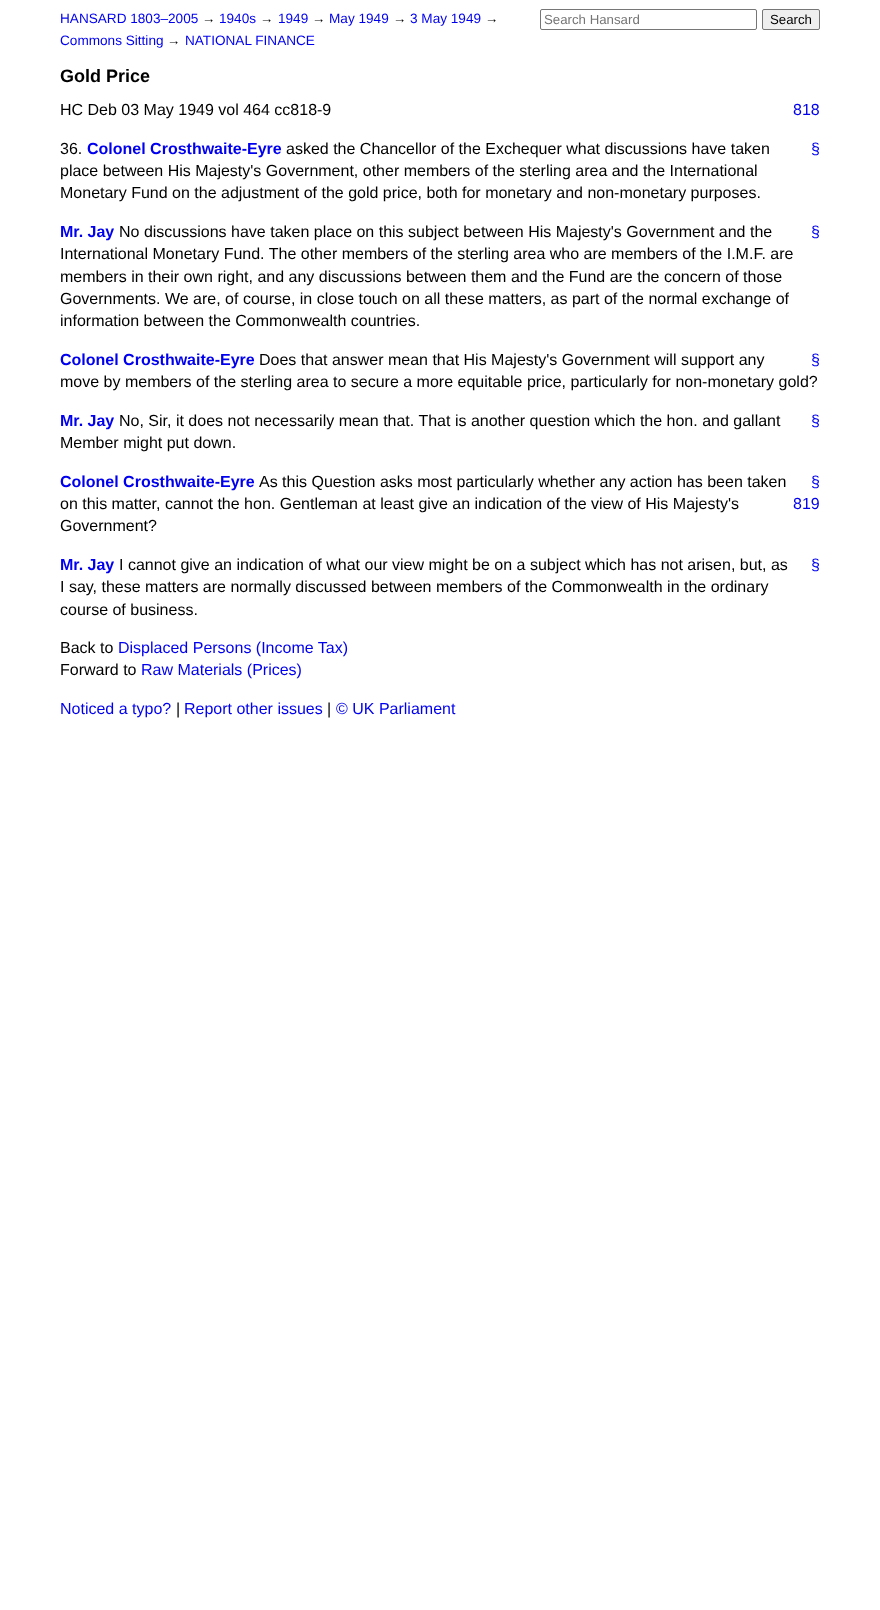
(async () => {
    const canvas = document.querySelector("canvas");
    canvas.width = 880;
    canvas.height = 1610;
    const context = canvas.getContext("2d");
    context.miterLimit = 4;
    context.fontKerning = "normal";
    function write(s, x, y, font, color) {
        context.font = font;
        context.fillStyle = color;
        context.fillText(s, x, y);
    }
    function block(x, y, w, h, color) {
        context.fillStyle = color;
        context.fillRect(x, y, w, h);
    }

    block(0, 0, 880, 1610, "rgb(255, 255, 255)");
    write("HANSARD 1803–2005", 60, 23, "13.6px Liberation Sans", "rgb(0, 0, 238)");
    write("→", 202, 23, "13.6px Liberation Sans", "rgb(0, 0, 0)");
    write("1940s", 219, 23, "13.6px Liberation Sans", "rgb(0, 0, 238)");
    write("→", 260, 23, "13.6px Liberation Sans", "rgb(0, 0, 0)");
    write("1949", 278, 23, "13.6px Liberation Sans", "rgb(0, 0, 238)");
    write("→", 312, 23, "13.6px Liberation Sans", "rgb(0, 0, 0)");
    write("May 1949", 329, 23, "13.6px Liberation Sans", "rgb(0, 0, 238)");
    write("→", 393, 23, "13.6px Liberation Sans", "rgb(0, 0, 0)");
    write("3 May 1949", 410, 23, "13.6px Liberation Sans", "rgb(0, 0, 238)");
    write("→", 485, 23, "13.6px Liberation Sans", "rgb(0, 0, 0)");
    write("Commons Sitting", 60, 45, "13.6px Liberation Sans", "rgb(0, 0, 238)");
    write("→", 167, 45, "13.6px Liberation Sans", "rgb(0, 0, 0)");
    write("NATIONAL FINANCE", 185, 45, "13.6px Liberation Sans", "rgb(0, 0, 238)");
    context.beginPath();
    context.roundRect(540.5, 9.5, 216, 20, 1.5);
    context.strokeStyle = "rgb(118, 118, 118)";
    context.stroke();
    write("Search Hansard", 544, 24, "13.25px Liberation Sans", "rgb(117, 117, 117)");
    context.fillStyle = "rgb(239, 239, 239)";
    context.beginPath();
    context.roundRect(762.5, 9.5, 57, 20, 1.5);
    context.fill();
    context.stroke();
    write("Search", 770, 24, "13.25px Liberation Sans", "rgb(0, 0, 0)");
    write("Gold Price", 60, 82, "bold 18px Liberation Sans", "rgb(0, 0, 0)");
    write("HC Deb 03 May 1949 vol 464 cc818-9", 60, 115, "16px Liberation Sans", "rgb(0, 0, 0)");
    write("818", 793, 115, "16px Liberation Sans", "rgb(0, 0, 238)");
    write("36.", 60, 154, "16px Liberation Sans", "rgb(0, 0, 0)");
    write("Colonel Crosthwaite-Eyre", 87, 154, "bold 16px Liberation Sans", "rgb(0, 0, 238)");
    write("asked the Chancellor of the Exchequer what discussions have taken", 286, 154, "16px Liberation Sans", "rgb(0, 0, 0)");
    write("§", 811, 154, "16px Liberation Sans", "rgb(0, 0, 238)");
    write("place between His Majesty's Government, other members of the sterling area and the International", 60, 176, "16px Liberation Sans", "rgb(0, 0, 0)");
    write("Monetary Fund on the adjustment of the gold price, both for monetary and non-monetary purposes.", 60, 198, "16px Liberation Sans", "rgb(0, 0, 0)");
    write("Mr. Jay", 60, 237, "bold 16px Liberation Sans", "rgb(0, 0, 238)");
    write("No discussions have taken place on this subject between His Majesty's Government and the", 119, 237, "16px Liberation Sans", "rgb(0, 0, 0)");
    write("§", 811, 237, "16px Liberation Sans", "rgb(0, 0, 238)");
    write("International Monetary Fund. The other members of the sterling area who are members of the I.M.F. are", 60, 259, "16px Liberation Sans", "rgb(0, 0, 0)");
    write("members in their own right, and any discussions between them and the Fund are the concern of those", 60, 282, "16px Liberation Sans", "rgb(0, 0, 0)");
    write("Governments. We are, of course, in close touch on all these matters, as part of the normal exchange of", 60, 304, "16px Liberation Sans", "rgb(0, 0, 0)");
    write("information between the Commonwealth countries.", 60, 326, "16px Liberation Sans", "rgb(0, 0, 0)");
    write("Colonel Crosthwaite-Eyre", 60, 365, "bold 16px Liberation Sans", "rgb(0, 0, 238)");
    write("Does that answer mean that His Majesty's Government will support any", 259, 365, "16px Liberation Sans", "rgb(0, 0, 0)");
    write("§", 811, 365, "16px Liberation Sans", "rgb(0, 0, 238)");
    write("move by members of the sterling area to secure a more equitable price, particularly for non-monetary gold?", 60, 387, "16px Liberation Sans", "rgb(0, 0, 0)");
    write("Mr. Jay", 60, 426, "bold 16px Liberation Sans", "rgb(0, 0, 238)");
    write("No, Sir, it does not necessarily mean that. That is another question which the hon. and gallant", 119, 426, "16px Liberation Sans", "rgb(0, 0, 0)");
    write("§", 811, 426, "16px Liberation Sans", "rgb(0, 0, 238)");
    write("Member might put down.", 60, 448, "16px Liberation Sans", "rgb(0, 0, 0)");
    write("As this Question asks most particularly whether any action has been taken", 259, 487, "16px Liberation Sans", "rgb(0, 0, 0)");
    write("on this matter, cannot the hon. Gentleman at least give an indication of the view of His Majesty's", 60, 509, "16px Liberation Sans", "rgb(0, 0, 0)");
    write("819", 793, 509, "16px Liberation Sans", "rgb(0, 0, 238)");
    write("Government?", 60, 531, "16px Liberation Sans", "rgb(0, 0, 0)");
    write("Colonel Crosthwaite-Eyre", 60, 487, "bold 16px Liberation Sans", "rgb(0, 0, 238)");
    write("§", 811, 487, "16px Liberation Sans", "rgb(0, 0, 238)");
    write("Mr. Jay", 60, 570, "bold 16px Liberation Sans", "rgb(0, 0, 238)");
    write("I cannot give an indication of what our view might be on a subject which has not arisen, but, as", 119, 570, "16px Liberation Sans", "rgb(0, 0, 0)");
    write("§", 811, 570, "16px Liberation Sans", "rgb(0, 0, 238)");
    write("I say, these matters are normally discussed between members of the Commonwealth in the ordinary", 60, 592, "16px Liberation Sans", "rgb(0, 0, 0)");
    write("course of business.", 60, 615, "16px Liberation Sans", "rgb(0, 0, 0)");
    write("Back to", 60, 653, "16px Liberation Sans", "rgb(0, 0, 0)");
    write("Displaced Persons (Income Tax)", 118, 653, "16px Liberation Sans", "rgb(0, 0, 238)");
    write("Forward to", 60, 675, "16px Liberation Sans", "rgb(0, 0, 0)");
    write("Raw Materials (Prices)", 141, 675, "16px Liberation Sans", "rgb(0, 0, 238)");
    write("Noticed a typo?", 60, 714, "16px Liberation Sans", "rgb(0, 0, 238)");
    write("|", 176, 714, "16px Liberation Sans", "rgb(0, 0, 0)");
    write("Report other issues", 184, 714, "16px Liberation Sans", "rgb(0, 0, 238)");
    write("|", 327, 714, "16px Liberation Sans", "rgb(0, 0, 0)");
    write("© UK Parliament", 336, 714, "16px Liberation Sans", "rgb(0, 0, 238)");
})();
